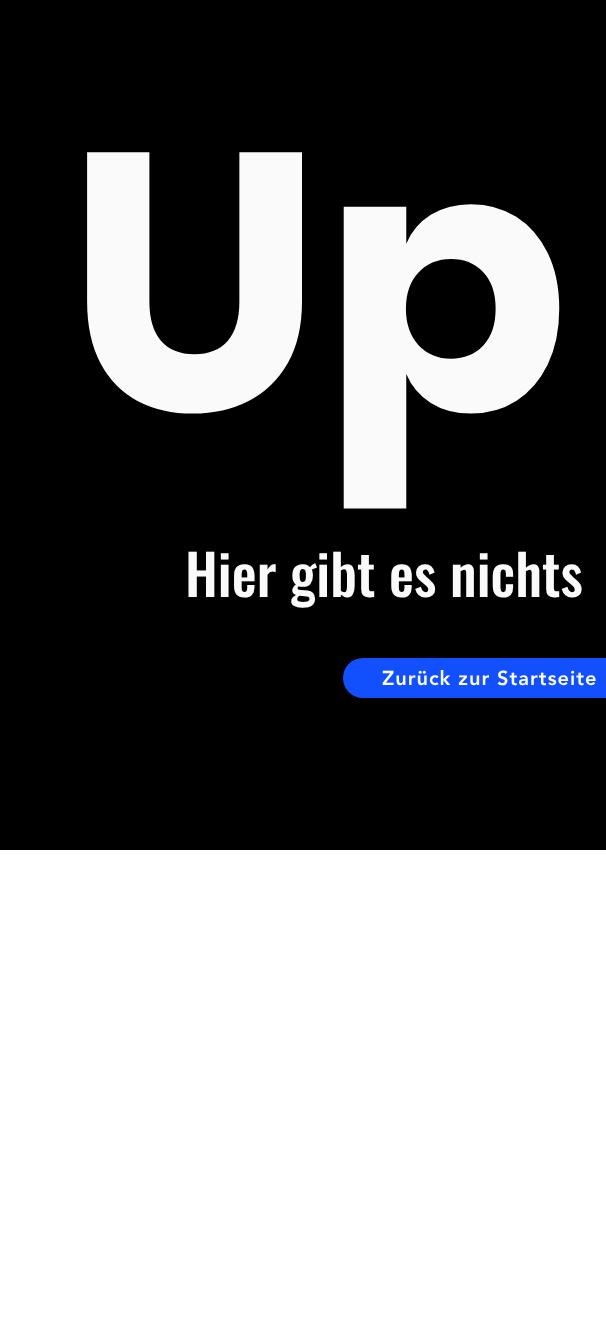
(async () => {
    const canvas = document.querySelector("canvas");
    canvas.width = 606;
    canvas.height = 1330;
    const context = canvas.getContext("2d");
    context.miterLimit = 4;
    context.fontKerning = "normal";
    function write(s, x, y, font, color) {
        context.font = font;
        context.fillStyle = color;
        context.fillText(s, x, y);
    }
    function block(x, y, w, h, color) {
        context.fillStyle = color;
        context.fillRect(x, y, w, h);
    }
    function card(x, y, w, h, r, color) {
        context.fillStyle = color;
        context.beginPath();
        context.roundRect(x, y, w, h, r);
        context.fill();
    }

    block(0, 0, 606, 1330, "rgb(255, 255, 255)");
    block(0, 0, 606, 850, "rgb(0, 0, 0)");
    write("Up", 67, 411, "bold 366px Poppins", "rgb(250, 250, 250)");
    write("Hier gibt es nichts", 185, 597, "500 56px Oswald", "rgb(250, 250, 250)");
    card(343, 658, 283, 40, 20, "rgb(17, 80, 252)");
    context.letterSpacing = "1px";
    write("Zurück zur Startseite", 382, 685, "900 20px 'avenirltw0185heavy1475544'", "rgb(250, 250, 250)");
})();
